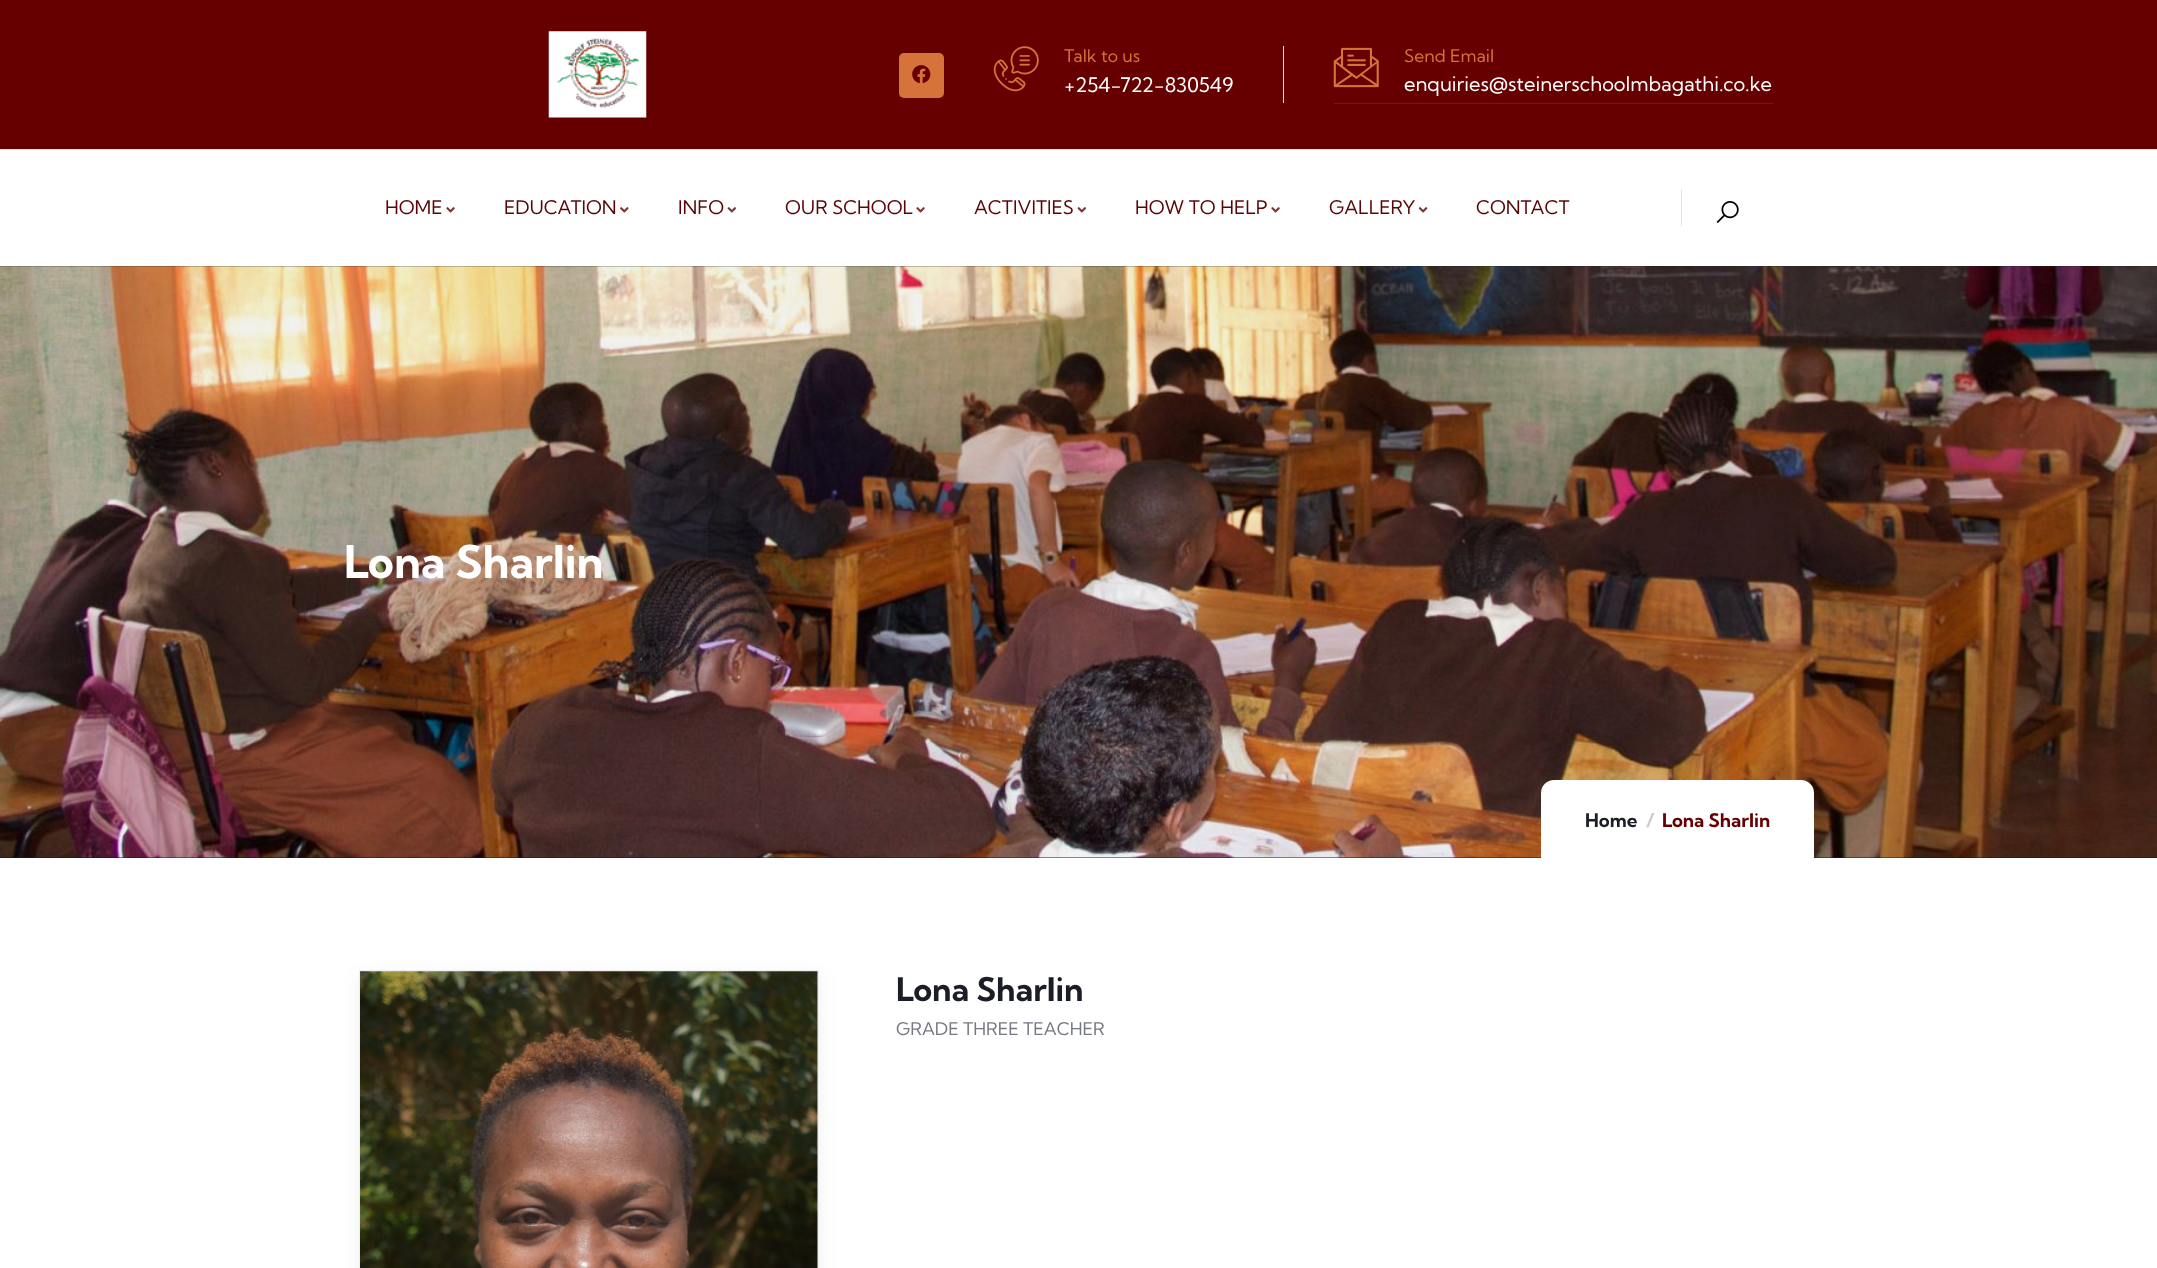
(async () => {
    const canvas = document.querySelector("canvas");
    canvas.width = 2157;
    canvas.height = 1268;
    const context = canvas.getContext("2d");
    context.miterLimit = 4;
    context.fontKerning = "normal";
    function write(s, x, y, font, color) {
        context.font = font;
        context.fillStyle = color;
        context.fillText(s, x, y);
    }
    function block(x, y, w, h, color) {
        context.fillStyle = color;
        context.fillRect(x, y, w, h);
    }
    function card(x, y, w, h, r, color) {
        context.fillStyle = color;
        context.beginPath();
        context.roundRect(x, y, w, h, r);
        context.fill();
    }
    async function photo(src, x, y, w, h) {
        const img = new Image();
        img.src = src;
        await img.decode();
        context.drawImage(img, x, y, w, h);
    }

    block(0, 0, 2157, 1268, "rgb(255, 255, 255)");
    block(0, 0, 2157, 149, "rgb(102, 0, 0)");
    block(0, 149, 2157, 1, "rgb(224, 226, 233)");
    await photo("media/1.png", 548, 31, 99, 87);
    card(899, 53, 45, 45, 5, "rgb(214, 115, 58)");
    await photo("media/2.png", 912, 65, 19, 19);
    block(1283, 46, 1, 57, "rgb(224, 226, 233)");
    await photo("media/3.png", 993, 46, 46, 46);
    write("Talk to us", 1064, 62, "17.5px Kumbh Sans", "rgb(214, 115, 58)");
    write("+254-722-830549", 1064, 92, "20px Kumbh Sans", "rgb(255, 255, 255)");
    block(1334, 103, 439, 1, "rgb(117, 26, 26)");
    await photo("media/4.png", 1333, 47, 46, 41);
    write("Send Email", 1404, 62, "17.5px Kumbh Sans", "rgb(214, 115, 58)");
    write("enquiries@steinerschoolmbagathi.co.ke", 1404, 91, "20px Kumbh Sans", "rgb(255, 255, 255)");
    write("HOME", 385, 214, "18.75px Kumbh Sans", "rgb(88, 5, 5)");
    await photo("media/5.png", 446, 207, 9, 6);
    write("EDUCATION", 504, 214, "18.75px Kumbh Sans", "rgb(88, 5, 5)");
    await photo("media/6.png", 620, 207, 9, 6);
    write("INFO", 678, 214, "18.75px Kumbh Sans", "rgb(88, 5, 5)");
    await photo("media/7.png", 727, 207, 10, 6);
    write("OUR SCHOOL", 785, 214, "18.75px Kumbh Sans", "rgb(88, 5, 5)");
    await photo("media/5.png", 916, 207, 9, 6);
    write("ACTIVITIES", 974, 214, "18.75px Kumbh Sans", "rgb(88, 5, 5)");
    await photo("media/7.png", 1077, 207, 10, 6);
    write("HOW TO HELP", 1135, 214, "18.75px Kumbh Sans", "rgb(88, 5, 5)");
    await photo("media/5.png", 1271, 207, 9, 6);
    write("GALLERY", 1329, 214, "18.75px Kumbh Sans", "rgb(88, 5, 5)");
    await photo("media/8.png", 1418, 207, 10, 6);
    write("CONTACT", 1476, 214, "18.75px Kumbh Sans", "rgb(88, 5, 5)");
    block(1681, 189, 1, 37, "rgb(230, 230, 230)");
    await photo("media/9.png", 1716, 201, 23, 22);
    block(0, 266, 2157, 592, "rgb(27, 29, 37)");
    await photo("media/10.png", 0, 266, 2157, 592);
    write("Lona Sharlin", 344, 578, "bold 45px Kumbh Sans", "rgb(255, 255, 255)");
    context.beginPath();
    context.roundRect(1541, 780, 273, 78, [13, 13, 0, 0]);
    context.fill();
    write("Home", 1585, 827, "bold 18.75px Kumbh Sans", "rgb(28, 30, 39)");
    write("/", 1646, 827, "bold 18.75px Kumbh Sans", "rgb(204, 204, 204)");
    write("Lona Sharlin", 1662, 827, "bold 18.75px Kumbh Sans", "rgb(102, 0, 0)");
    context.fillStyle = "rgba(0, 0, 0, 0.06)";
    context.filter = "blur(9.5px)";
    context.beginPath();
    context.rect(359, 976, 460, 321);
    context.fill();
    context.filter = "none";
    context.strokeStyle = "rgb(239, 239, 239)";
    context.strokeRect(359.5, 970.5, 459, 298);
    await photo("media/11.png", 360, 971, 458, 297);
    write("Lona Sharlin", 896, 1001, "bold 32.5px Kumbh Sans", "rgb(28, 30, 39)");
    write("GRADE THREE TEACHER", 896, 1035, "17.5px Kumbh Sans", "rgb(117, 119, 131)");
})();
